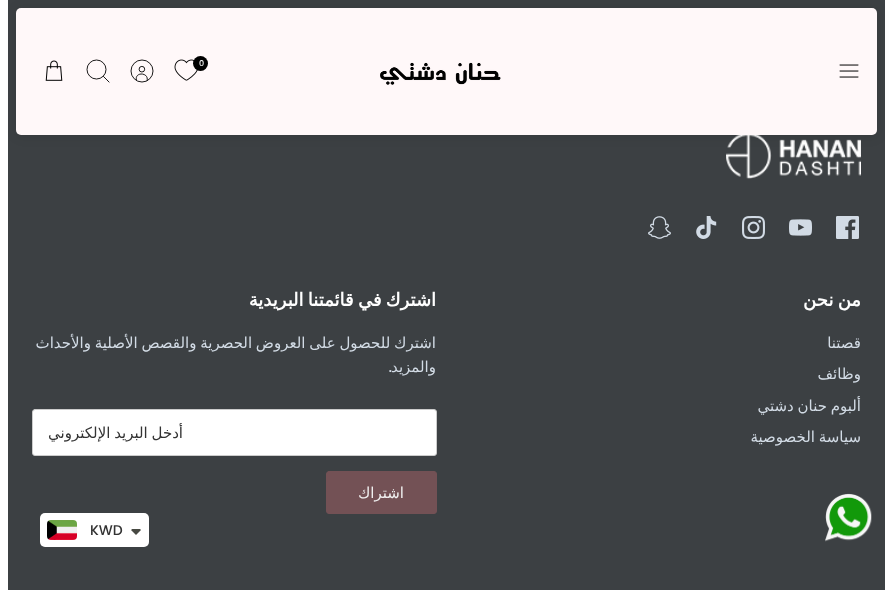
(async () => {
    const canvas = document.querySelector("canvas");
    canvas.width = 893;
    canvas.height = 590;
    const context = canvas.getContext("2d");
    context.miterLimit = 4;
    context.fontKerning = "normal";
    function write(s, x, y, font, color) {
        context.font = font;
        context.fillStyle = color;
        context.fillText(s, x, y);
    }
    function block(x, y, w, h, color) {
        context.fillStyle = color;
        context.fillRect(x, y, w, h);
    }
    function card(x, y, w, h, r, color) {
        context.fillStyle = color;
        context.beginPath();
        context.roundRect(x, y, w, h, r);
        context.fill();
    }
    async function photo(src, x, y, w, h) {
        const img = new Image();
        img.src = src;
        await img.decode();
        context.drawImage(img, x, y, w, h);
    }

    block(0, 0, 893, 590, "rgb(255, 255, 255)");
    block(8, 0, 877, 590, "rgb(60, 64, 67)");
    await photo("media/5.png", 726, 135, 135, 44);
    context.fillStyle = "rgba(0, 0, 0, 0.1)";
    context.filter = "blur(6px)";
    context.beginPath();
    context.roundRect(17, 9, 861, 127, 5);
    context.fill();
    context.filter = "none";
    card(16, 8, 861, 127, 5, "rgb(255, 248, 249)");
    await photo("media/1.png", 839, 64, 20, 14);
    await photo("media/2.png", 380, 62, 121, 23);
    await photo("media/3.png", 174, 59, 24, 22);
    context.fillStyle = "rgb(0, 0, 0)";
    context.beginPath();
    context.arc(200.5, 63.5, 7.5, 0, Math.PI * 2);
    context.fill();
    write("0", 199, 66, "500 8px Poppins", "rgb(255, 255, 255)");
    context.beginPath();
    context.moveTo(147, 81);
    context.bezierCurveTo(149.5, 72, 134, 71.5, 136.5, 80.5);
    context.strokeStyle = "rgb(0, 0, 0)";
    context.lineWidth = 0.9;
    context.stroke();
    context.beginPath();
    context.arc(141.9, 69.2, 2.8, 0, Math.PI * 2);
    context.stroke();
    context.beginPath();
    context.arc(142, 71, 11, 0, Math.PI * 2);
    context.stroke();
    context.beginPath();
    context.arc(96.5, 69.5, 9.5, 0, Math.PI * 2);
    context.stroke();
    context.beginPath();
    context.moveTo(103.5, 76.5);
    context.lineTo(109, 82);
    context.lineCap = "square";
    context.stroke();
    await photo("media/4.png", 45, 60, 18, 21);
    await photo("media/6.png", 836, 216, 23, 23);
    await photo("media/7.png", 789, 219, 23, 17);
    await photo("media/8.png", 742, 216, 23, 23);
    await photo("media/9.png", 696, 216, 21, 23);
    await photo("media/10.png", 648, 216, 23, 23);
    context.wordSpacing = "-1.5px";
    context.direction = "rtl";
    write("من نحن", 861, 306, "bold 18px DejaVu Sans", "rgb(255, 255, 255)");
    context.wordSpacing = "0px";
    write("قصتنا", 861, 348, "15px DejaVu Sans", "rgb(210, 219, 229)");
    write("وظائف", 861, 379, "15px DejaVu Sans", "rgb(210, 219, 229)");
    context.wordSpacing = "-1px";
    write("ألبوم حنان دشتي", 861, 411, "15px DejaVu Sans", "rgb(210, 219, 229)");
    write("سياسة الخصوصية", 861, 442, "15px DejaVu Sans", "rgb(210, 219, 229)");
    context.wordSpacing = "-1.5px";
    write("اشترك في قائمتنا البريدية", 436, 306, "bold 18px DejaVu Sans", "rgb(255, 255, 255)");
    context.wordSpacing = "-1px";
    write("اشترك للحصول على العروض الحصرية والقصص الأصلية والأحداث", 436, 348, "15px DejaVu Sans", "rgb(210, 219, 229)");
    context.wordSpacing = "0px";
    write("والمزيد", 436, 372, "15px DejaVu Sans", "rgb(210, 219, 229)");
    write(".", 392, 372, "500 15px Poppins", "rgb(210, 219, 229)");
    context.fillStyle = "rgb(255, 255, 255)";
    context.beginPath();
    context.roundRect(32.5, 409.5, 404, 46, 2.5);
    context.fill();
    context.strokeStyle = "rgb(204, 204, 204)";
    context.lineWidth = 1;
    context.stroke();
    context.wordSpacing = "-1px";
    write("أدخل البريد الإلكتروني", 183, 438, "15px DejaVu Sans", "rgb(51, 51, 51)");
    context.fillStyle = "rgb(115, 81, 85)";
    context.beginPath();
    context.roundRect(326.5, 471.5, 110, 42, 2.5);
    context.fill();
    context.strokeStyle = "rgb(115, 81, 85)";
    context.stroke();
    context.wordSpacing = "0px";
    write("اشتراك", 404, 498, "15px DejaVu Sans", "rgb(240, 240, 240)");
    await photo("media/11.png", 825, 493, 47, 49);
    card(40, 513, 109, 34, 5, "rgb(255, 255, 255)");
    context.fillStyle = "rgb(71, 73, 66)";
    context.beginPath();
    context.moveTo(133, 529);
    context.bezierCurveTo(132, 529, 131.5, 529.5, 131, 530);
    context.lineTo(136, 535);
    context.lineTo(141, 530);
    context.lineTo(140, 529);
    context.closePath();
    context.fill();
    context.direction = "ltr";
    write("KWD", 90, 535, "500 14px Poppins", "rgb(51, 51, 51)");
    await photo("media/12.png", 47, 520, 30, 20);
})();
